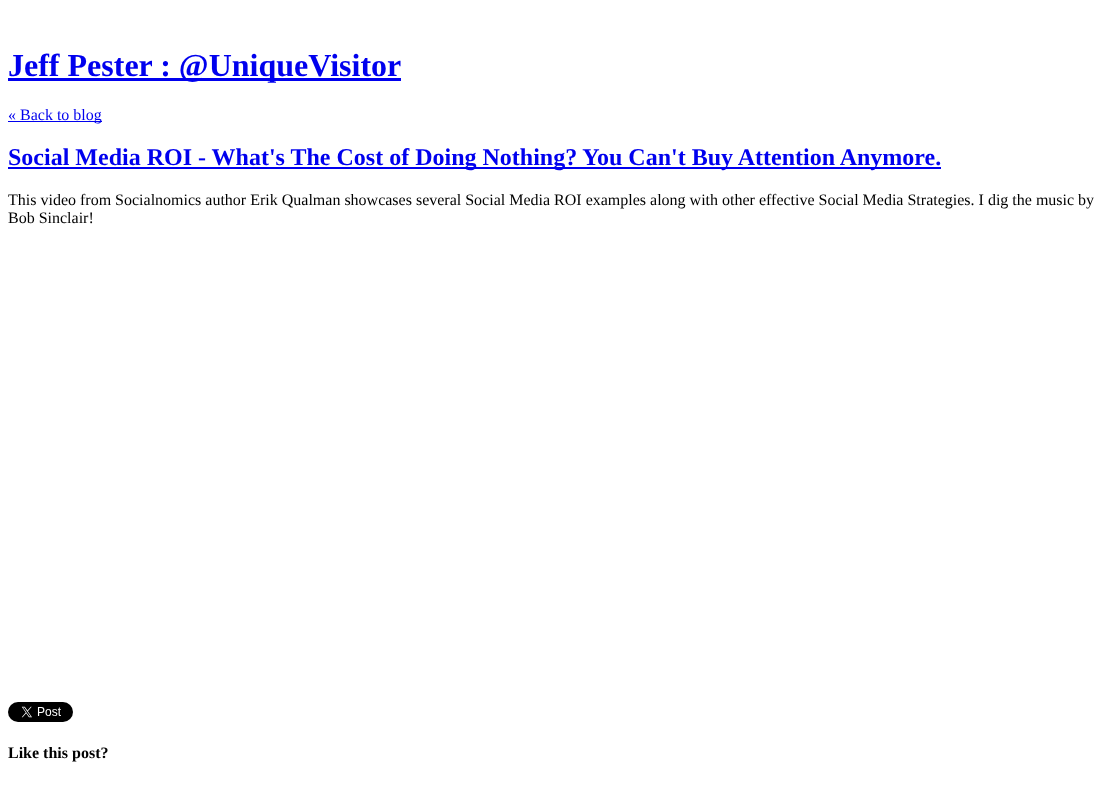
(async () => {
    const canvas = document.querySelector("canvas");
    canvas.width = 1117;
    canvas.height = 791;
    const context = canvas.getContext("2d");
    context.miterLimit = 4;
    context.fontKerning = "normal";
    function write(s, x, y, font, color) {
        context.font = font;
        context.fillStyle = color;
        context.fillText(s, x, y);
    }
    function block(x, y, w, h, color) {
        context.fillStyle = color;
        context.fillRect(x, y, w, h);
    }
    async function photo(src, x, y, w, h) {
        const img = new Image();
        img.src = src;
        await img.decode();
        context.drawImage(img, x, y, w, h);
    }

    block(0, 0, 1117, 791, "rgb(255, 255, 255)");
    block(8, 78, 393, 3, "rgb(0, 0, 238)");
    write("Jeff Pester : @UniqueVisitor", 8, 76, "bold 32px Liberation Serif", "rgb(0, 0, 238)");
    block(8, 121, 94, 1, "rgb(0, 0, 238)");
    write("« Back to blog", 8, 120, "16px Liberation Serif", "rgb(0, 0, 238)");
    block(8, 167, 933, 2, "rgb(0, 0, 238)");
    write("Social Media ROI - What's The Cost of Doing Nothing? You Can't Buy Attention Anymore.", 8, 165, "bold 24px Liberation Serif", "rgb(0, 0, 238)");
    write("This video from Socialnomics author Erik Qualman showcases several Social Media ROI examples along with other effective Social Media Strategies. I dig the music by", 8, 205, "16px Liberation Serif", "rgb(0, 0, 0)");
    write("Bob Sinclair!", 8, 223, "16px Liberation Serif", "rgb(0, 0, 0)");
    await photo("media/1.png", 8, 702, 65, 20);
    write("Like this post?", 8, 758, "bold 16px Liberation Serif", "rgb(0, 0, 0)");
})();
